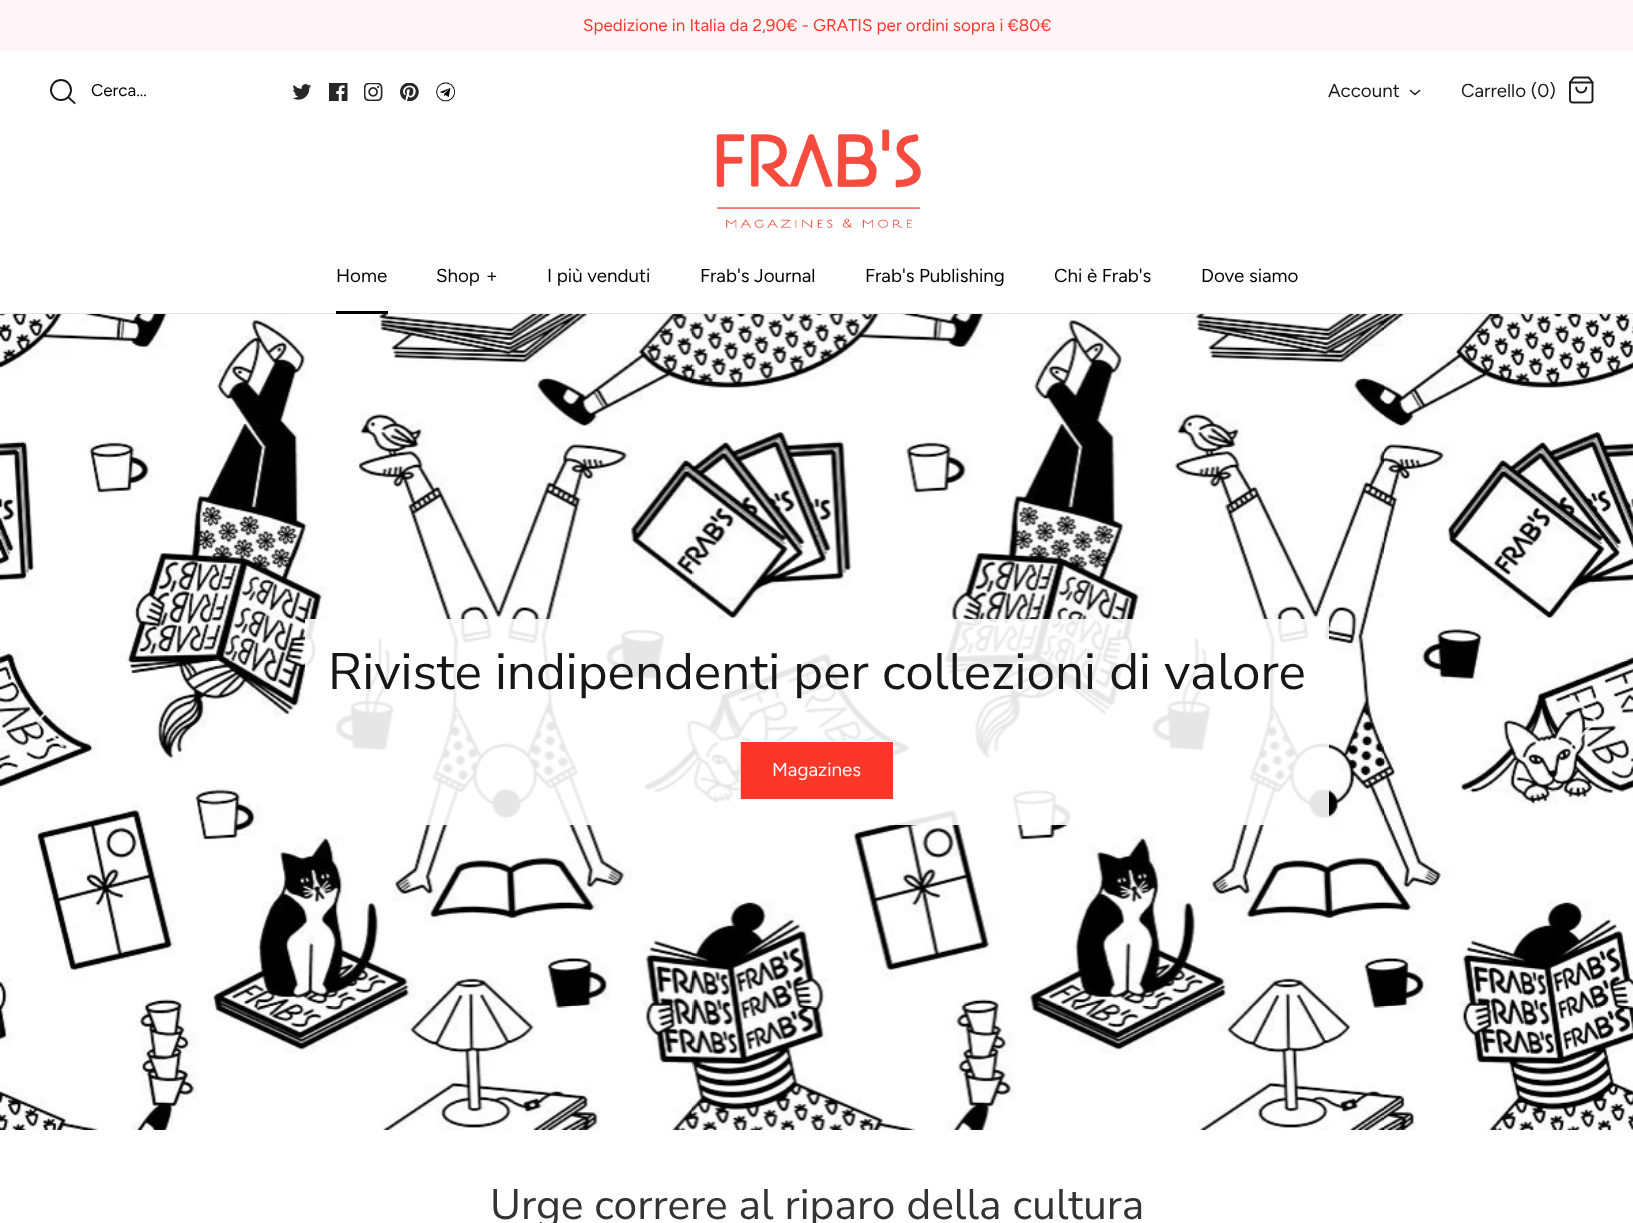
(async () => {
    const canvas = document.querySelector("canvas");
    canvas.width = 1633;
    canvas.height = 1223;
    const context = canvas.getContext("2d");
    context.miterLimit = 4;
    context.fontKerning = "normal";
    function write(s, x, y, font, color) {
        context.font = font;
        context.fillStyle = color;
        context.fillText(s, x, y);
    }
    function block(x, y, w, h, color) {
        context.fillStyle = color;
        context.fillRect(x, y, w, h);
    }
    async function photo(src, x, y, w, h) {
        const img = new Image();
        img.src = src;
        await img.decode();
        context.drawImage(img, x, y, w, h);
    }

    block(0, 0, 1633, 1223, "rgb(255, 255, 255)");
    block(0, 0, 1633, 51, "rgb(255, 244, 248)");
    write("Spedizione in Italia da 2,90€ - GRATIS per ordini sopra i €80€", 583, 31, "17px Figtree", "rgb(251, 55, 41)");
    context.beginPath();
    context.arc(61, 90, 10, 0, Math.PI * 2);
    context.strokeStyle = "rgb(23, 23, 23)";
    context.lineWidth = 1.9;
    context.stroke();
    context.beginPath();
    context.moveTo(68.5, 97.5);
    context.lineTo(74.5, 103);
    context.lineCap = "square";
    context.stroke();
    write("Cerca...", 91, 96, "17px Figtree", "rgb(0, 0, 0)");
    await photo("media/1.png", 293, 84, 18, 16);
    await photo("media/2.png", 329, 83, 19, 18);
    await photo("media/3.png", 364, 83, 19, 18);
    await photo("media/4.png", 400, 83, 19, 18);
    await photo("media/5.png", 436, 82, 19, 20);
    write("Account", 1328, 97, "18.75px Figtree", "rgb(23, 23, 23)");
    context.beginPath();
    context.moveTo(1410.5, 90.5);
    context.lineTo(1415, 94.5);
    context.lineTo(1419.5, 90.5);
    context.lineWidth = 1.5;
    context.lineCap = "round";
    context.lineJoin = "round";
    context.stroke();
    write("Carrello (0)", 1461, 97, "18.75px Figtree", "rgb(23, 23, 23)");
    await photo("media/6.png", 1569, 76, 25, 28);
    await photo("media/7.png", 716, 129, 205, 99);
    block(0, 313, 1633, 1, "rgb(223, 227, 232)");
    write("Home", 336, 282, "18.75px Figtree", "rgb(0, 0, 0)");
    block(336, 311, 52, 3, "rgb(0, 0, 0)");
    write("Shop", 436, 282, "18.75px Figtree", "rgb(0, 0, 0)");
    write("+", 486, 282, "18.75px Figtree", "rgb(0, 0, 0)");
    write("I più venduti", 547, 282, "18.75px Figtree", "rgb(0, 0, 0)");
    write("Frab's Journal", 700, 282, "18.75px Figtree", "rgb(0, 0, 0)");
    write("Frab's Publishing", 865, 282, "18.75px Figtree", "rgb(0, 0, 0)");
    write("Chi è Frab's", 1054, 282, "18.75px Figtree", "rgb(0, 0, 0)");
    write("Dove siamo", 1201, 282, "18.75px Figtree", "rgb(0, 0, 0)");
    await photo("media/8.png", 0, 314, 1633, 816);
    context.beginPath();
    context.moveTo(62.5, 746);
    context.lineTo(37.5, 721);
    context.lineTo(62.5, 696);
    context.strokeStyle = "rgba(255, 255, 255, 0.75)";
    context.lineWidth = 2.5;
    context.stroke();
    block(305, 619, 1024, 206, "rgba(255, 255, 255, 0.9)");
    write("Riviste indipendenti per collezioni di valore", 328, 689, "51.25px Nunito Sans", "rgb(23, 23, 23)");
    context.fillStyle = "rgb(251, 55, 41)";
    context.beginPath();
    context.rect(740.5, 741.5, 153, 58);
    context.fill();
    context.strokeStyle = "rgb(255, 244, 248)";
    context.lineWidth = 1;
    context.lineJoin = "miter";
    context.stroke();
    write("Magazines", 772, 776, "18.75px Figtree", "rgb(255, 244, 248)");
    context.beginPath();
    context.moveTo(1571, 746);
    context.lineTo(1596, 721);
    context.lineTo(1571, 696);
    context.strokeStyle = "rgba(255, 255, 255, 0.75)";
    context.lineWidth = 2.5;
    context.lineJoin = "round";
    context.stroke();
    write("Urge correre al riparo della cultura", 490, 1219, "42.5px Nunito Sans", "rgb(51, 51, 51)");
})();
